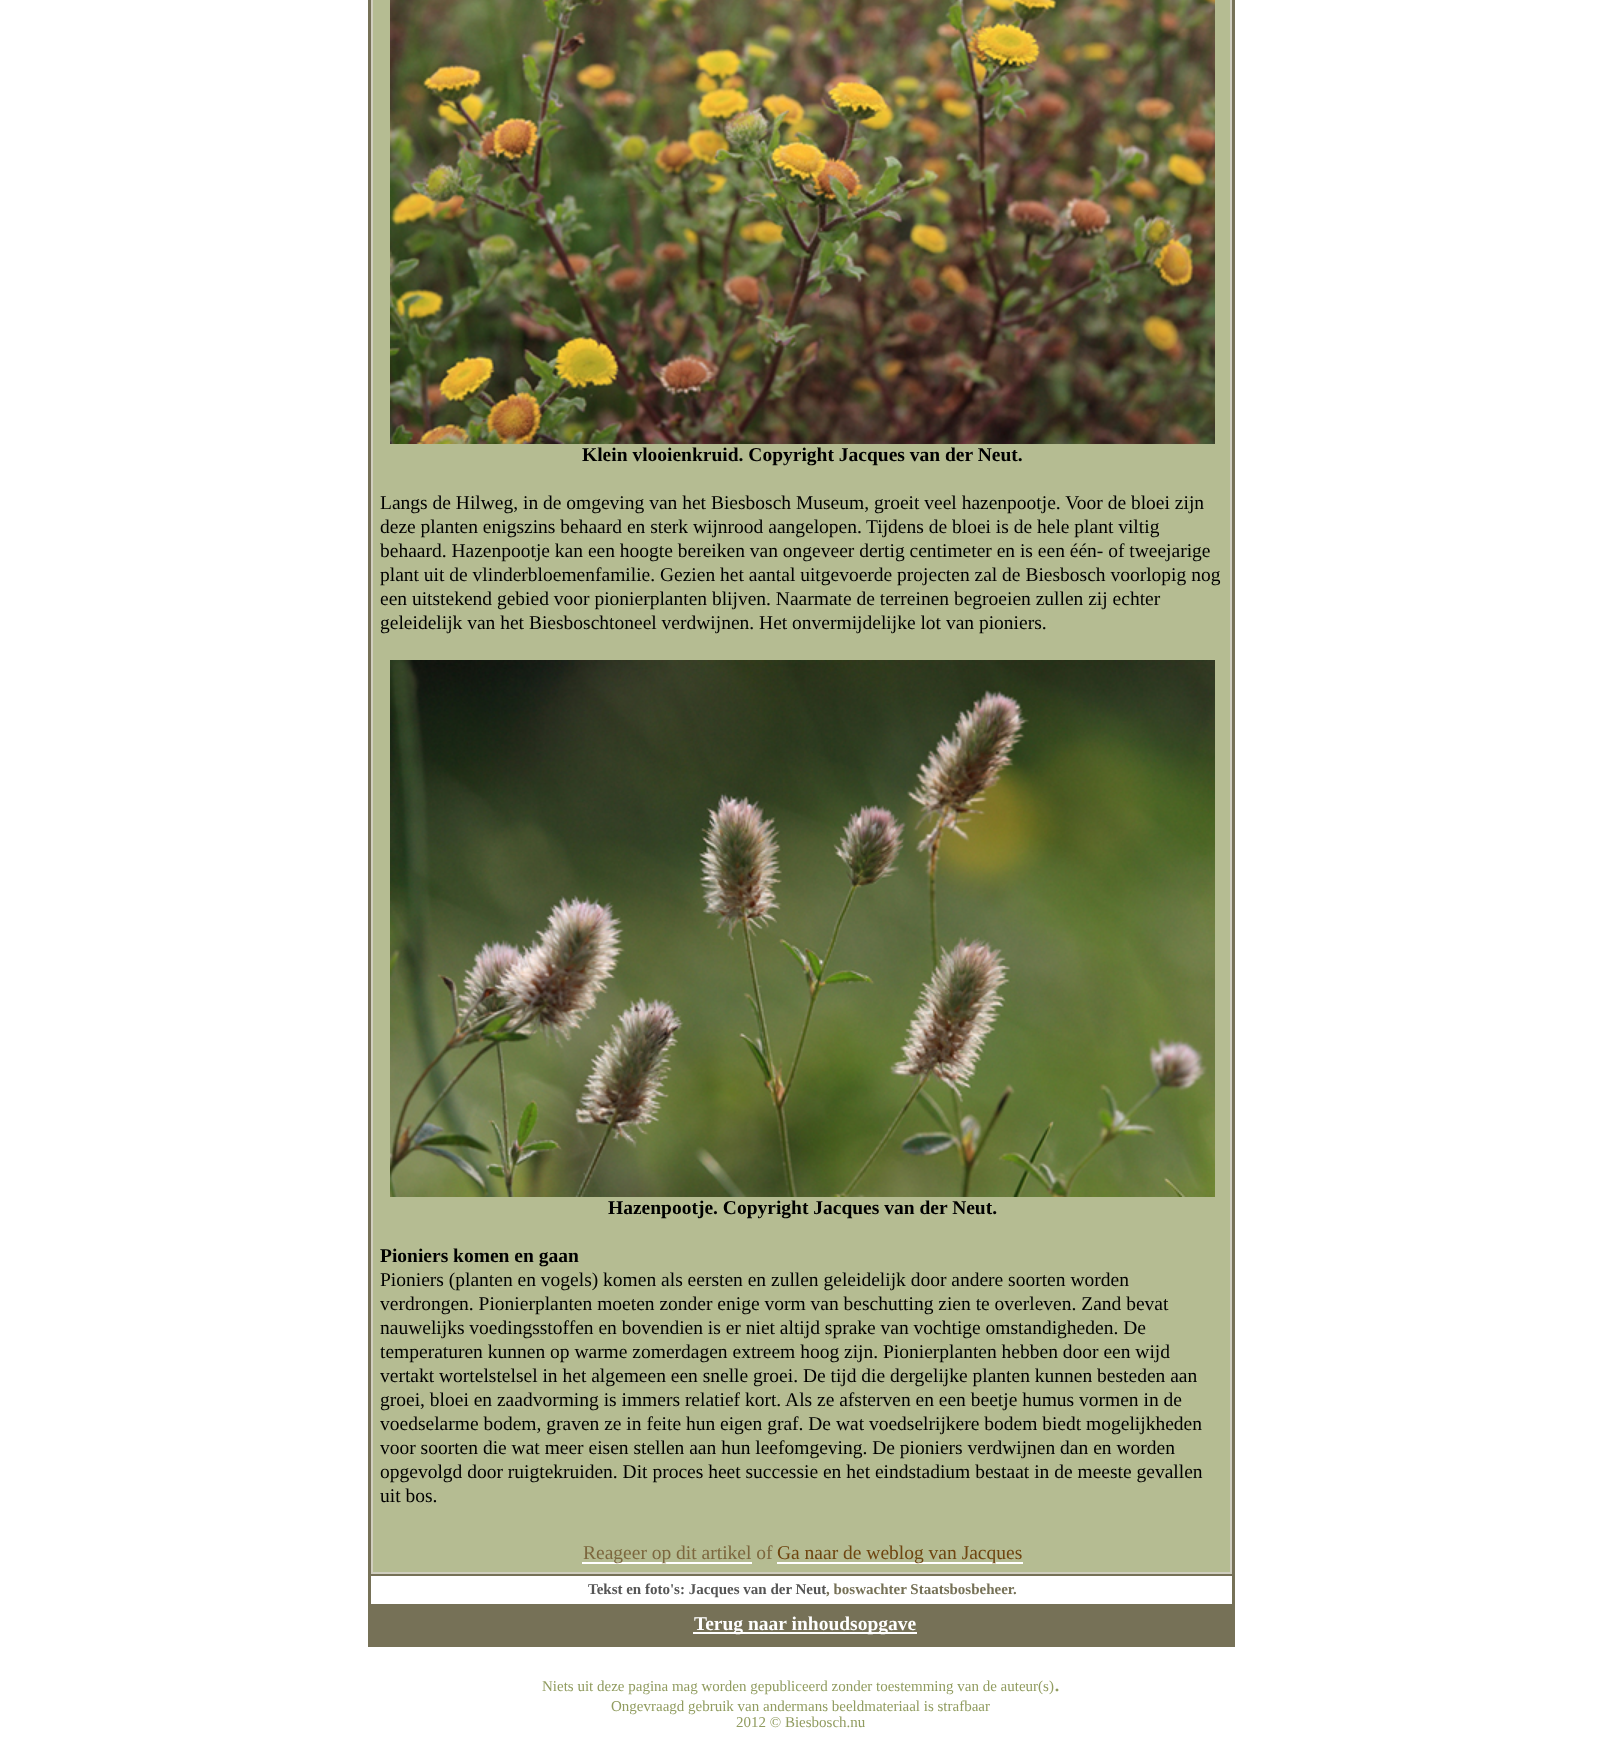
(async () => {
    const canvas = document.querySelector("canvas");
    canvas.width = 1601;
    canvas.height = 1754;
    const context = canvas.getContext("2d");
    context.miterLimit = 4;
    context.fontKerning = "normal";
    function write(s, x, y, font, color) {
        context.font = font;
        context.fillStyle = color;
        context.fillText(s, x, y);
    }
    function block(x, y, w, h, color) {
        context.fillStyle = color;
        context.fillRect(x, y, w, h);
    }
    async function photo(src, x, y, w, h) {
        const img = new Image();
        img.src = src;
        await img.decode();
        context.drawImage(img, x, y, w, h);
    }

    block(0, 0, 1601, 1754, "rgb(255, 255, 255)");
    block(369, 1574, 866, 2, "rgb(118, 113, 87)");
    block(369, 1604, 866, 2, "rgb(118, 113, 87)");
    block(1232, 0, 3, 1647, "rgb(118, 113, 87)");
    block(368, 1644, 867, 3, "rgb(118, 113, 87)");
    block(368, 0, 3, 1647, "rgb(118, 113, 87)");
    block(1230, 0, 2, 1574, "rgb(208, 206, 191)");
    block(371, 1572, 861, 2, "rgb(208, 206, 191)");
    block(371, 0, 2, 1574, "rgb(208, 206, 191)");
    block(373, 0, 857, 1572, "rgb(181, 188, 146)");
    await photo("media/1.png", 390, 0, 825, 444);
    write("Klein vlooienkruid. Copyright Jacques van der Neut.", 582, 461, "bold 19.5px Liberation Serif", "rgb(0, 0, 0)");
    write("Langs de Hilweg, in de omgeving van het Biesbosch Museum, groeit veel hazenpootje. Voor de bloei zijn", 380, 509, "19.5px Liberation Serif", "rgb(0, 0, 0)");
    write("deze planten enigszins behaard en sterk wijnrood aangelopen.", 380, 533, "19.5px Liberation Serif", "rgb(0, 0, 0)");
    write("Tijdens de bloei is de hele plant viltig", 866, 533, "19.5px Liberation Serif", "rgb(0, 0, 0)");
    write("behaard. Hazenpootje kan een hoogte bereiken van ongeveer dertig centimeter en is een één- of tweejarige", 380, 557, "19.5px Liberation Serif", "rgb(0, 0, 0)");
    write("plant uit de vlinderbloemenfamilie. Gezien het aantal uitgevoerde projecten zal de Biesbosch voorlopig nog", 380, 581, "19.5px Liberation Serif", "rgb(0, 0, 0)");
    write("een uitstekend gebied voor pionierplanten blijven. Naarmate de terreinen begroeien zullen zij echter", 380, 605, "19.5px Liberation Serif", "rgb(0, 0, 0)");
    write("geleidelijk van het Biesboschtoneel verdwijnen. Het onvermijdelijke lot van pioniers.", 380, 629, "19.5px Liberation Serif", "rgb(0, 0, 0)");
    await photo("media/2.png", 390, 660, 825, 537);
    write("Hazenpootje. Copyright Jacques van der Neut.", 608, 1214, "bold 19.5px Liberation Serif", "rgb(0, 0, 0)");
    write("Pioniers komen en gaan", 380, 1262, "bold 19.5px Liberation Serif", "rgb(0, 0, 0)");
    write("Pioniers (planten en vogels) komen als eersten en zullen geleidelijk door andere soorten worden", 380, 1286, "19.5px Liberation Serif", "rgb(0, 0, 0)");
    write("verdrongen. Pionierplanten moeten zonder enige vorm van beschutting zien te overleven. Zand bevat", 380, 1310, "19.5px Liberation Serif", "rgb(0, 0, 0)");
    write("nauwelijks voedingsstoffen en bovendien is er niet altijd sprake van vochtige omstandigheden. De", 380, 1334, "19.5px Liberation Serif", "rgb(0, 0, 0)");
    write("temperaturen kunnen op warme zomerdagen extreem hoog zijn. Pionierplanten hebben door een wijd", 380, 1358, "19.5px Liberation Serif", "rgb(0, 0, 0)");
    write("vertakt wortelstelsel in het algemeen een snelle groei. De tijd die dergelijke planten kunnen besteden aan", 380, 1382, "19.5px Liberation Serif", "rgb(0, 0, 0)");
    write("groei, bloei en zaadvorming is immers relatief kort. Als ze afsterven en een beetje humus vormen in de", 380, 1406, "19.5px Liberation Serif", "rgb(0, 0, 0)");
    write("voedselarme bodem, graven ze in feite hun eigen graf. De wat voedselrijkere bodem biedt mogelijkheden", 380, 1430, "19.5px Liberation Serif", "rgb(0, 0, 0)");
    write("voor soorten die wat meer eisen stellen aan hun leefomgeving. De pioniers verdwijnen dan en worden", 380, 1454, "19.5px Liberation Serif", "rgb(0, 0, 0)");
    write("opgevolgd door ruigtekruiden. Dit proces heet successie en het eindstadium bestaat in de meeste gevallen", 380, 1478, "19.5px Liberation Serif", "rgb(0, 0, 0)");
    write("uit bos.", 380, 1502, "19.5px Liberation Serif", "rgb(0, 0, 0)");
    block(582, 1562, 170, 2, "rgb(255, 255, 255)");
    write("Reageer op dit artikel of", 583, 1559, "19.5px Liberation Serif", "rgb(124, 103, 62)");
    block(777, 1562, 246, 2, "rgb(255, 255, 255)");
    write("Ga naar de weblog van Jacques", 777, 1559, "19.5px Liberation Serif", "rgb(110, 69, 16)");
    write("Tekst en foto's: Jacques van der Neut", 588, 1594, "bold 15px Liberation Serif", "rgb(85, 85, 85)");
    write(", boswachter Staatsbosbeheer.", 826, 1594, "bold 15px Liberation Serif", "rgb(118, 113, 87)");
    block(371, 1606, 861, 38, "rgb(118, 113, 87)");
    block(693, 1632, 224, 2, "rgb(255, 255, 255)");
    write("Terug naar inhoudsopgave", 694, 1630, "bold 19.5px Liberation Serif", "rgb(255, 255, 255)");
    write("Niets uit deze pagina mag worden gepubliceerd zonder toestemming van de auteur(s)", 542, 1691, "15px Liberation Serif", "rgb(145, 156, 96)");
    write(".", 1054, 1691, "24px Liberation Serif", "rgb(145, 156, 96)");
    write("Ongevraagd gebruik van andermans beeldmateriaal is strafbaar", 611, 1711, "15px Liberation Serif", "rgb(145, 156, 96)");
    write("2012 © Biesbosch.nu", 736, 1727, "15px Liberation Serif", "rgb(145, 156, 96)");
})();
